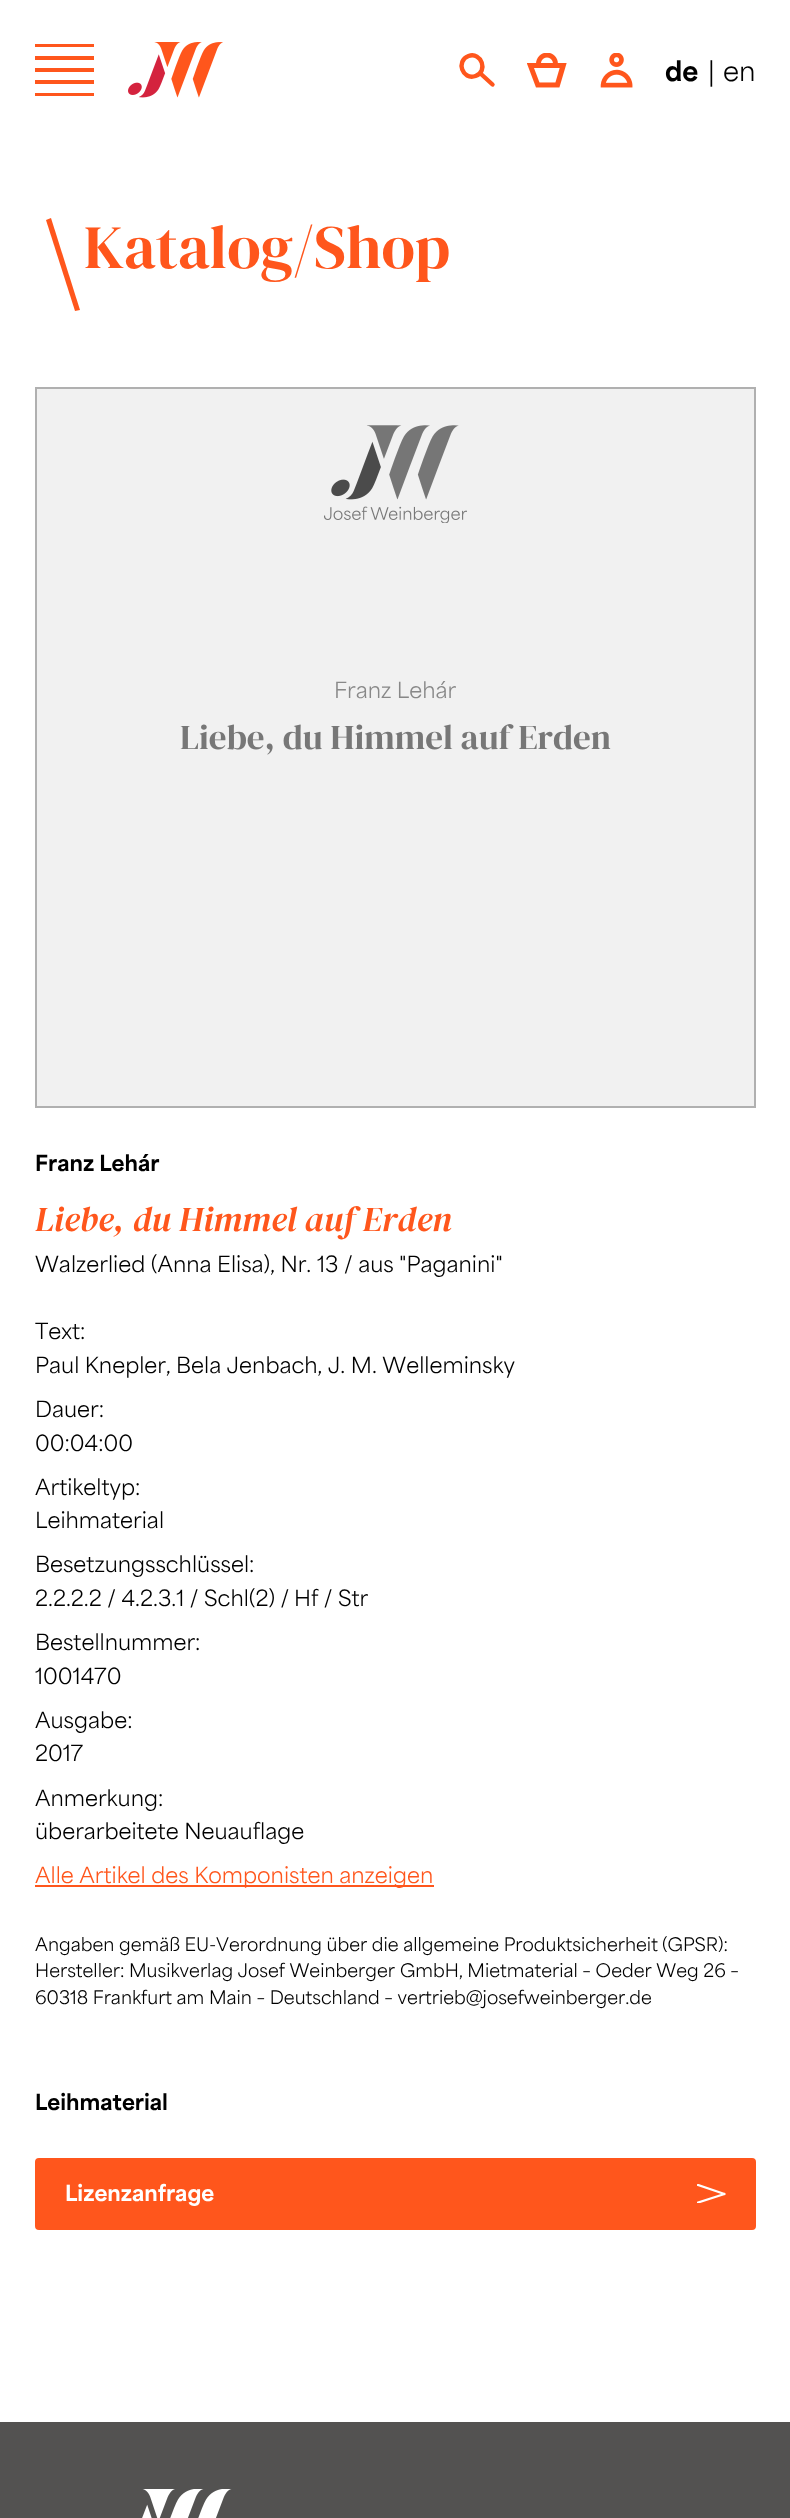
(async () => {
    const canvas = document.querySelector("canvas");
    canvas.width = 790;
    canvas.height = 2518;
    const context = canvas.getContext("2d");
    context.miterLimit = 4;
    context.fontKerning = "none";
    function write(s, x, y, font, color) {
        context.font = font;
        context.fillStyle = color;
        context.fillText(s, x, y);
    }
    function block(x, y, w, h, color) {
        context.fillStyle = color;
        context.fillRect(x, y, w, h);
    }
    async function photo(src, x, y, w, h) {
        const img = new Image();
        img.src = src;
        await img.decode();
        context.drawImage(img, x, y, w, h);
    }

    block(0, 0, 790, 2518, "rgb(255, 255, 255)");
    context.fillStyle = "rgb(255, 86, 28)";
    context.beginPath();
    context.moveTo(35, 44);
    context.lineTo(94, 44);
    context.lineTo(94, 47);
    context.lineTo(35, 47);
    context.closePath();
    context.moveTo(35, 56);
    context.lineTo(94, 56);
    context.lineTo(94, 60);
    context.lineTo(35, 60);
    context.closePath();
    context.moveTo(35, 68);
    context.lineTo(94, 68);
    context.lineTo(94, 72);
    context.lineTo(35, 72);
    context.closePath();
    context.moveTo(35, 80);
    context.lineTo(94, 80);
    context.lineTo(94, 84);
    context.lineTo(35, 84);
    context.closePath();
    context.moveTo(35, 93);
    context.lineTo(94, 93);
    context.lineTo(94, 96);
    context.lineTo(35, 96);
    context.closePath();
    context.fill();
    await photo("media/1.png", 128, 42, 95, 56);
    context.beginPath();
    context.moveTo(475.5, 76);
    context.bezierCurveTo(488.5, 71.5, 481.5, 51.5, 468.5, 56);
    context.bezierCurveTo(455.5, 61, 462.5, 80.5, 475.5, 76);
    context.closePath();
    context.strokeStyle = "rgb(255, 86, 28)";
    context.lineWidth = 4.4;
    context.stroke();
    context.beginPath();
    context.moveTo(481, 74);
    context.lineTo(492.5, 84.5);
    context.lineCap = "round";
    context.stroke();
    await photo("media/2.png", 527, 53, 40, 35);
    await photo("media/3.png", 600, 53, 33, 35);
    write("de", 665, 81, "800 26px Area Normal", "rgb(0, 0, 0)");
    write("|", 708, 81, "26px Area Normal", "rgb(0, 0, 0)");
    write("en", 723, 81, "26px Area Normal", "rgb(0, 0, 0)");
    context.fillStyle = "rgb(255, 86, 28)";
    context.beginPath();
    context.moveTo(46, 220);
    context.lineTo(51, 218);
    context.lineTo(80, 310);
    context.lineTo(75, 311);
    context.closePath();
    context.fill();
    write("Katalog/Shop", 84, 268, "61.25px DM Serif Display", "rgb(255, 86, 28)");
    block(37, 389, 717, 717, "rgb(241, 241, 241)");
    await photo("media/4.png", 324, 425, 143, 98);
    context.strokeStyle = "rgb(176, 176, 176)";
    context.lineWidth = 2;
    context.strokeRect(36, 388, 719, 719);
    write("Franz Lehár", 334, 698, "21px Area Normal", "rgb(136, 136, 136)");
    write("Liebe, du Himmel auf Erden", 180, 749, "35px DM Serif Display", "rgb(119, 119, 119)");
    write("Franz Lehár", 35, 1171, "800 21px Area Normal", "rgb(0, 0, 0)");
    write("Liebe, du Himmel auf Erden", 35, 1231, "italic 35px DM Serif Display", "rgb(255, 86, 28)");
    write("Walzerlied (Anna Elisa), Nr.", 35, 1272, "21px Area Normal", "rgb(0, 0, 0)");
    write("13 / aus \"Paganini\"", 317, 1272, "21px Area Normal", "rgb(0, 0, 0)");
    write("Text:", 35, 1339, "21px Area Normal", "rgb(0, 0, 0)");
    write("Paul Knepler, Bela Jenbach,", 35, 1373, "21px Area Normal", "rgb(0, 0, 0)");
    write("J. M. Welleminsky", 328, 1373, "21px Area Normal", "rgb(0, 0, 0)");
    write("Dauer:", 35, 1417, "21px Area Normal", "rgb(0, 0, 0)");
    write("00:04:00", 35, 1451, "21px Area Normal", "rgb(0, 0, 0)");
    write("Artikeltyp:", 35, 1495, "21px Area Normal", "rgb(0, 0, 0)");
    write("Leihmaterial", 35, 1528, "21px Area Normal", "rgb(0, 0, 0)");
    write("Besetzungsschlüssel:", 35, 1572, "21px Area Normal", "rgb(0, 0, 0)");
    write("2.2.2.2 / 4.2.3.1 / Schl(2) /", 35, 1606, "21px Area Normal", "rgb(0, 0, 0)");
    write("Hf / Str", 294, 1606, "21px Area Normal", "rgb(0, 0, 0)");
    write("Bestellnummer:", 35, 1650, "21px Area Normal", "rgb(0, 0, 0)");
    write("1001470", 35, 1684, "21px Area Normal", "rgb(0, 0, 0)");
    write("Ausgabe:", 35, 1728, "21px Area Normal", "rgb(0, 0, 0)");
    write("2017", 35, 1761, "21px Area Normal", "rgb(0, 0, 0)");
    write("Anmerkung:", 35, 1806, "21px Area Normal", "rgb(0, 0, 0)");
    write("überarbeitete Neuauflage", 35, 1839, "21px Area Normal", "rgb(0, 0, 0)");
    block(35, 1885, 399, 2, "rgb(255, 86, 28)");
    write("Alle Artikel des Komponisten anzeigen", 35, 1883, "21px Area Normal", "rgb(255, 86, 28)");
    write("Angaben gemäß EU-Verordnung über die allgemeine Produktsicherheit", 35, 1951, "17.5px Area Normal", "rgb(0, 0, 0)");
    write("(GPSR):", 662, 1951, "17.5px Area Normal", "rgb(0, 0, 0)");
    write("Hersteller: Musikverlag Josef Weinberger", 35, 1977, "17.5px Area Normal", "rgb(0, 0, 0)");
    write("GmbH, Mietmaterial – Oeder Weg 26 –", 400, 1977, "17.5px Area Normal", "rgb(0, 0, 0)");
    write("60318 Frankfurt am Main – Deutschland – vertrieb@josefweinberger.de", 35, 2004, "17.5px Area Normal", "rgb(0, 0, 0)");
    write("Leihmaterial", 35, 2110, "800 21px Area Normal", "rgb(0, 0, 0)");
    context.fillStyle = "rgb(255, 86, 28)";
    context.beginPath();
    context.roundRect(37, 2160, 717, 68, 2);
    context.fill();
    context.strokeStyle = "rgb(255, 86, 28)";
    context.lineWidth = 4;
    context.stroke();
    write("Lizenzanfrage", 65, 2201, "800 21px Area Normal", "rgb(255, 255, 255)");
    context.save();
    context.beginPath();
    context.rect(697, 2184, 29, 19);
    context.clip();
    context.beginPath();
    context.moveTo(698, 2202.5);
    context.lineTo(724.5, 2194);
    context.moveTo(698, 2185);
    context.lineTo(724.5, 2194);
    context.strokeStyle = "rgb(255, 255, 255)";
    context.lineWidth = 2.3;
    context.stroke();
    context.restore();
    block(0, 2422, 790, 96, "rgb(83, 82, 81)");
    await photo("media/5.png", 142, 2489, 90, 29);
})();
